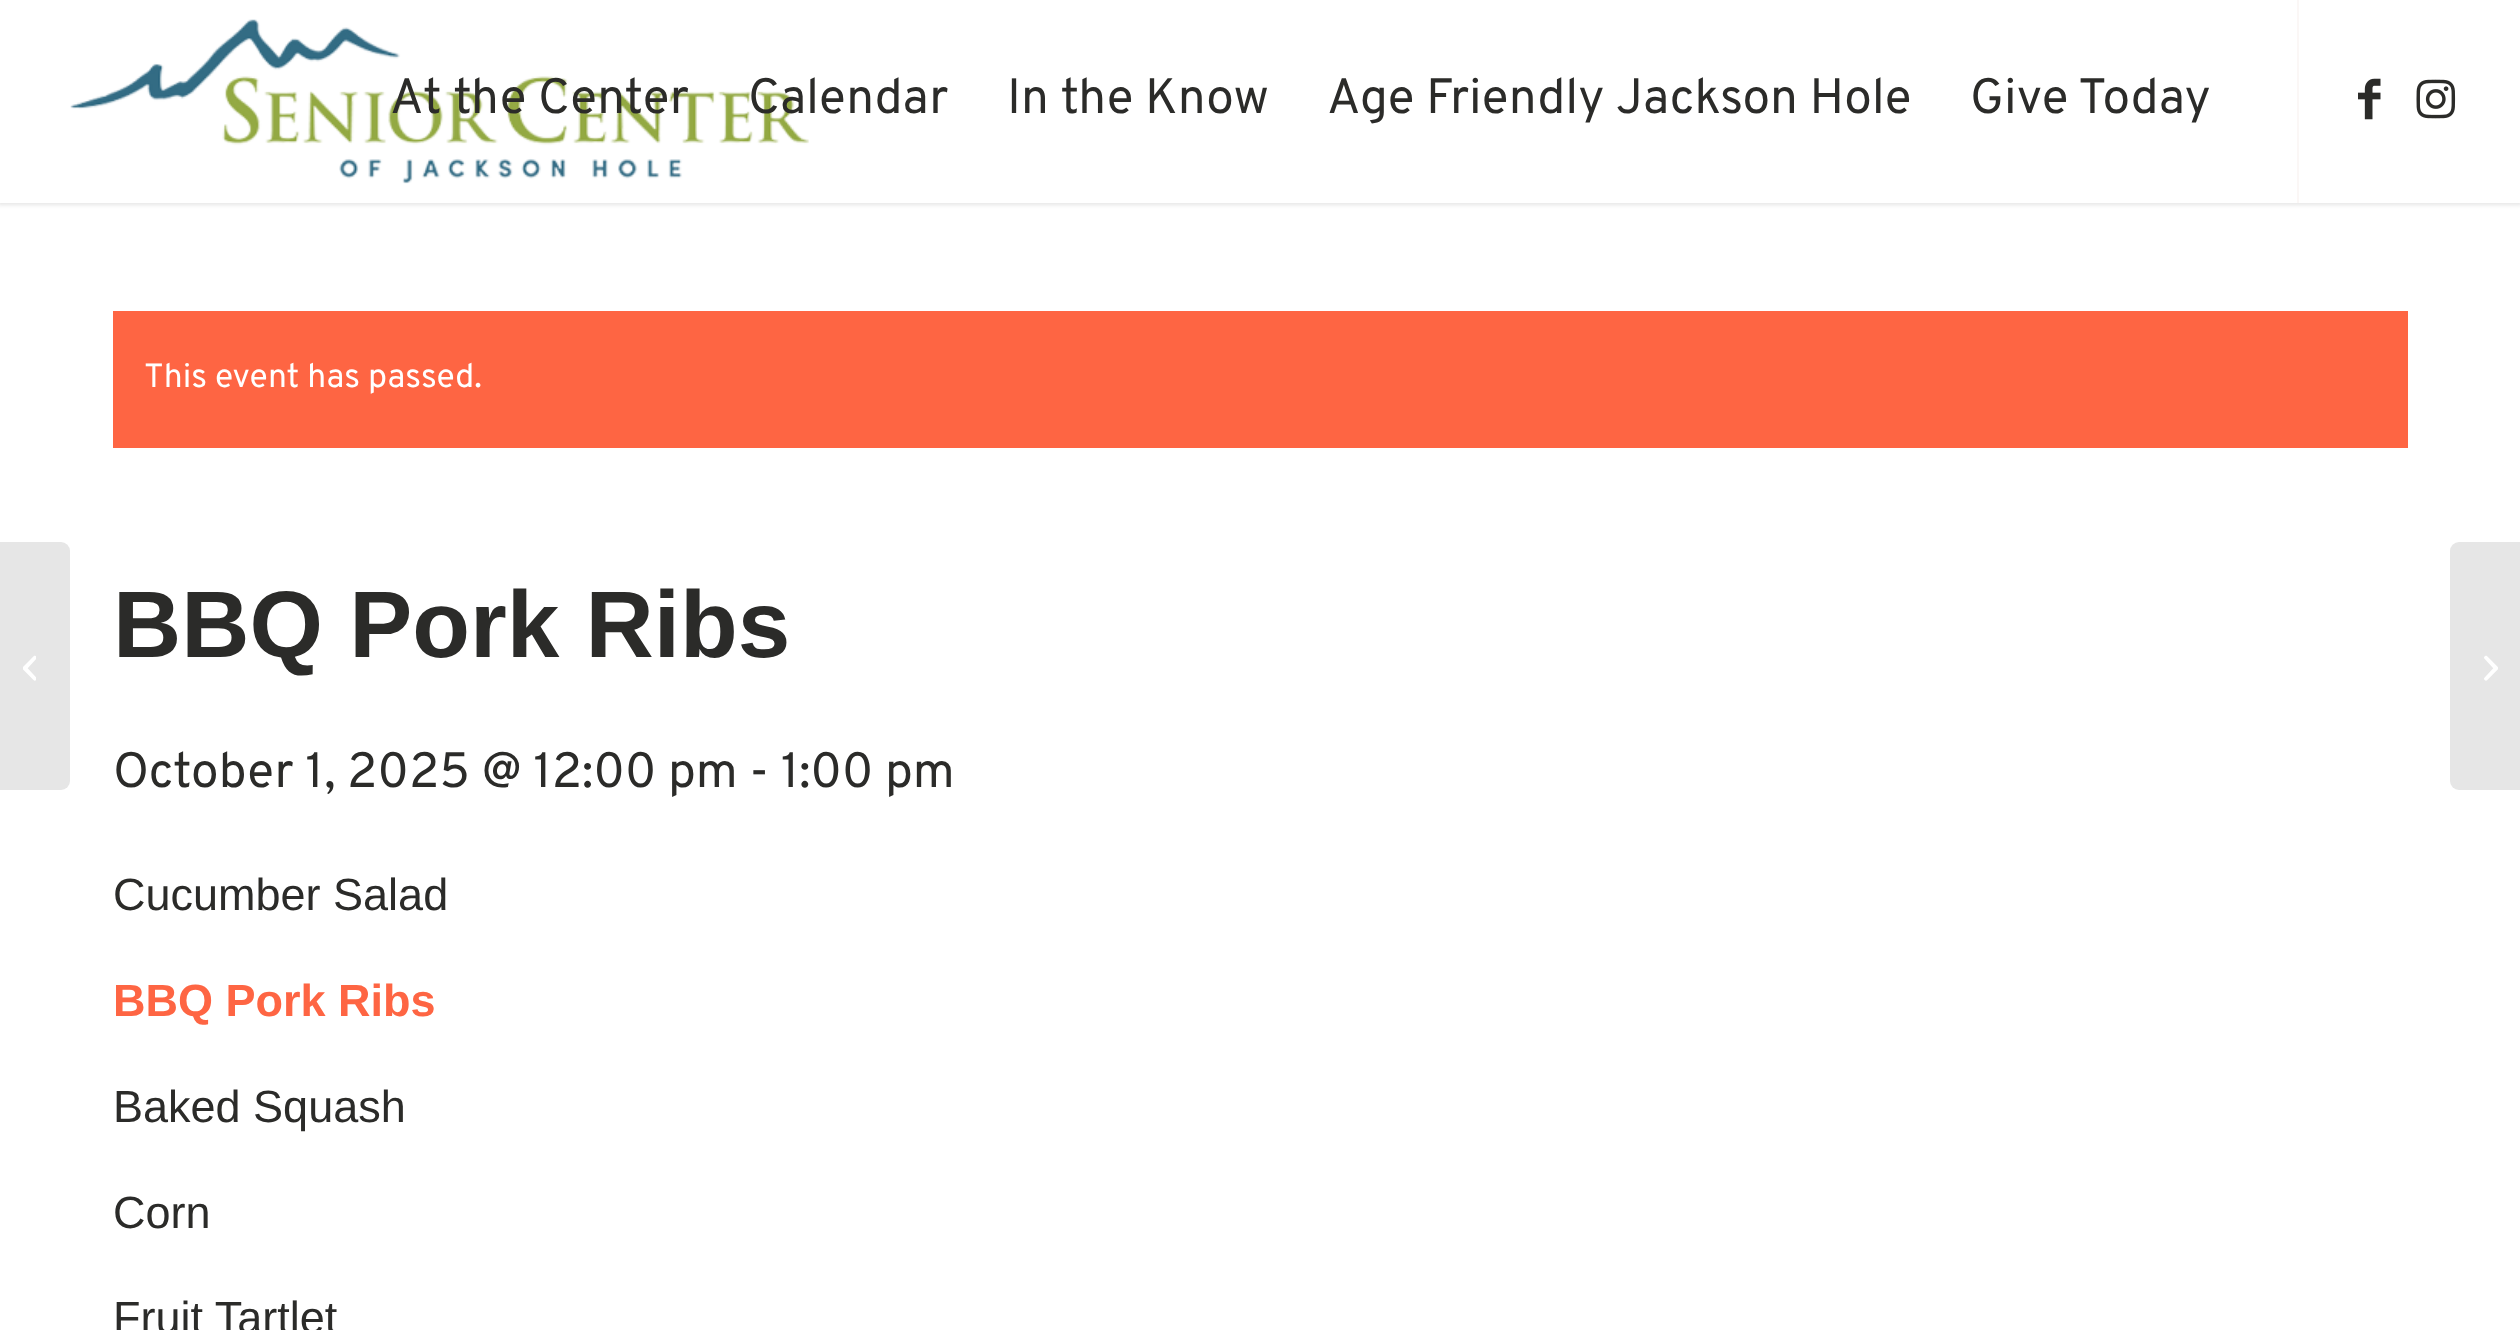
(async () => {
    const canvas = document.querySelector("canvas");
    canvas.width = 2520;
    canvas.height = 1330;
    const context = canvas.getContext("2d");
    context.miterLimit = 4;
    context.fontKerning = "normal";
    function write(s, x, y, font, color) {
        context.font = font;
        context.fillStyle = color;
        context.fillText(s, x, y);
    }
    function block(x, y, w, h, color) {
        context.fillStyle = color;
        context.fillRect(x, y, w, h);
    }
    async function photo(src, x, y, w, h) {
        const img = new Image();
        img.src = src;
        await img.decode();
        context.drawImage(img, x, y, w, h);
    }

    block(0, 0, 2520, 1330, "rgb(255, 255, 255)");
    context.fillStyle = "rgba(0, 0, 0, 0.1)";
    context.filter = "blur(2px)";
    context.beginPath();
    context.rect(-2, -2, 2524, 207);
    context.fill();
    context.filter = "none";
    block(0, 0, 2520, 203, "rgb(255, 255, 255)");
    await photo("media/1.png", 70, 19, 739, 165);
    block(2297, 0, 2, 203, "rgb(251, 247, 246)");
    write("At the Center", 390, 113, "49.5px Overpass", "rgb(43, 43, 41)");
    write("Calendar", 748, 113, "49.5px Overpass", "rgb(43, 43, 41)");
    write("In the Know", 1007, 113, "49.5px Overpass", "rgb(43, 43, 41)");
    write("Age Friendly Jackson Hole", 1327, 113, "49.5px Overpass", "rgb(43, 43, 41)");
    write("Give Today", 1970, 113, "49.5px Overpass", "rgb(43, 43, 41)");
    await photo("media/2.png", 2358, 78, 23, 42);
    await photo("media/3.png", 2416, 79, 40, 40);
    context.fillStyle = "rgb(230, 230, 230)";
    context.beginPath();
    context.roundRect(0, 542, 70, 248, [0, 9, 9, 0]);
    context.fill();
    await photo("media/4.png", 23, 655, 13, 26);
    block(113, 311, 2295, 137, "rgb(254, 101, 67)");
    write("This event has passed.", 144, 387, "33.75px Overpass", "rgb(255, 255, 255)");
    write("BBQ Pork Ribs", 113, 657, "bold 94.5px Liberation Sans", "rgb(43, 43, 41)");
    write("October 1, 2025 @ 12:00 pm - 1:00 pm", 113, 787, "49.5px Overpass", "rgb(43, 43, 41)");
    write("Cucumber Salad", 113, 910, "45px Liberation Sans", "rgb(43, 43, 41)");
    write("BBQ Pork Ribs", 113, 1016, "bold 45px Liberation Sans", "rgb(254, 101, 67)");
    write("Baked Squash", 113, 1122, "45px Liberation Sans", "rgb(43, 43, 41)");
    write("Corn", 113, 1228, "45px Liberation Sans", "rgb(43, 43, 41)");
    write("Fruit Tartlet", 113, 1333, "45px Liberation Sans", "rgb(43, 43, 41)");
    context.fillStyle = "rgb(230, 230, 230)";
    context.beginPath();
    context.roundRect(2450, 542, 70, 248, [9, 0, 0, 9]);
    context.fill();
    await photo("media/5.png", 2484, 655, 14, 26);
})();
